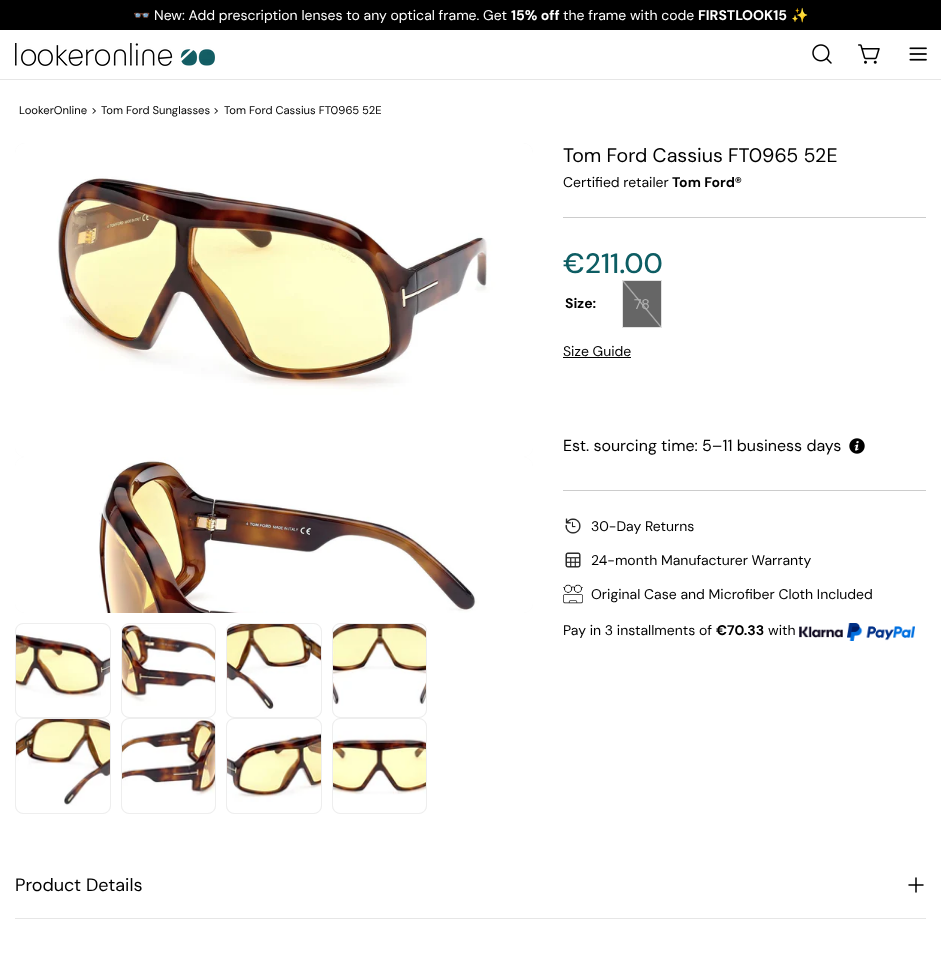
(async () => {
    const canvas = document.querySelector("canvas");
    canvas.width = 941;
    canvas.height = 965;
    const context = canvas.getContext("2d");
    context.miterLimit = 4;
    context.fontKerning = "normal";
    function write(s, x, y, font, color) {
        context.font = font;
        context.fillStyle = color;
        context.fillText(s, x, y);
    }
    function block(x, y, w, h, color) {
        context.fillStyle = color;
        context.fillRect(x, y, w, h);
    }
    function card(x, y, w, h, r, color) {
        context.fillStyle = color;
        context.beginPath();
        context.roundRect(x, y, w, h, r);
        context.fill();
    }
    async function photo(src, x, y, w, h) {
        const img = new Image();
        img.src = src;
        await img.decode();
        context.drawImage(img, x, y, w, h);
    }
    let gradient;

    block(0, 0, 941, 965, "rgb(255, 255, 255)");
    block(0, 0, 941, 30, "rgb(0, 0, 0)");
    write("👓", 133, 20, "14px Noto Color Emoji", "rgb(255, 255, 255)");
    write("New: Add prescription lenses to any optical frame. Get", 154, 20, "14px DM Sans", "rgb(255, 255, 255)");
    write("15% off", 511, 20, "bold 14px DM Sans", "rgb(255, 255, 255)");
    write("the frame with code", 563, 20, "14px DM Sans", "rgb(255, 255, 255)");
    write("FIRSTLOOK15", 698, 20, "bold 14px DM Sans", "rgb(255, 255, 255)");
    write("✨", 791, 20, "14px Noto Color Emoji", "rgb(255, 255, 255)");
    block(0, 79, 941, 1, "rgb(230, 230, 230)");
    await photo("media/1.png", 15, 43, 200, 23);
    await photo("media/2.png", 812, 44, 20, 20);
    await photo("media/3.png", 858, 44, 22, 20);
    await photo("media/4.png", 909, 47, 18, 14);
    write("LookerOnline", 19, 114, "11.25px DM Sans", "rgb(0, 0, 0)");
    write(">", 91, 114, "11.25px DM Sans", "rgb(0, 0, 0)");
    write("Tom Ford Sunglasses", 101, 114, "11.25px DM Sans", "rgb(0, 0, 0)");
    write(">", 213, 114, "11.25px DM Sans", "rgb(0, 0, 0)");
    write("Tom Ford Cassius FT0965 52E", 224, 114, "11.25px DM Sans", "rgb(0, 0, 0)");
    card(15, 143, 518, 314, 10, "rgb(248, 248, 248)");
    await photo("media/5.png", 15, 143, 518, 314);
    card(15, 457, 518, 156, 10, "rgb(248, 248, 248)");
    await photo("media/6.png", 15, 457, 518, 156);
    context.fillStyle = "rgb(247, 247, 247)";
    context.beginPath();
    context.roundRect(15.5, 623.5, 95, 94, 7.5);
    context.fill();
    context.strokeStyle = "rgb(238, 238, 238)";
    context.stroke();
    await photo("media/7.png", 16, 624, 94, 93);
    context.beginPath();
    context.roundRect(121.5, 623.5, 94, 94, 7.5);
    context.fill();
    context.stroke();
    await photo("media/8.png", 122, 624, 93, 93);
    context.beginPath();
    context.roundRect(226.5, 623.5, 95, 94, 7.5);
    context.fill();
    context.stroke();
    await photo("media/9.png", 227, 624, 94, 93);
    context.beginPath();
    context.roundRect(332.5, 623.5, 94, 94, 7.5);
    context.fill();
    context.stroke();
    await photo("media/10.png", 333, 624, 93, 93);
    context.beginPath();
    context.roundRect(15.5, 718.5, 95, 95, 7.5);
    context.fill();
    context.stroke();
    await photo("media/11.png", 16, 719, 94, 94);
    context.beginPath();
    context.roundRect(121.5, 718.5, 94, 95, 7.5);
    context.fill();
    context.stroke();
    await photo("media/12.png", 122, 719, 93, 94);
    context.beginPath();
    context.roundRect(226.5, 718.5, 95, 95, 7.5);
    context.fill();
    context.stroke();
    await photo("media/13.png", 227, 719, 94, 94);
    context.beginPath();
    context.roundRect(332.5, 718.5, 94, 95, 7.5);
    context.fill();
    context.stroke();
    await photo("media/14.png", 333, 719, 93, 94);
    write("Tom Ford Cassius FT0965 52E", 563, 162, "19.6px DM Sans", "rgb(0, 0, 0)");
    write("Certified retailer", 563, 187, "14px DM Sans", "rgb(0, 0, 0)");
    write("Tom Ford®", 672, 187, "bold 14px DM Sans", "rgb(0, 0, 0)");
    block(563, 217, 363, 1, "rgb(204, 204, 204)");
    write("€211.00", 563, 273, "500 28px DM Sans", "rgb(13, 93, 99)");
    write("Size:", 565, 308, "bold 14px DM Sans", "rgb(0, 0, 0)");
    context.fillStyle = "rgb(102, 102, 102)";
    context.beginPath();
    context.rect(622.5, 280.5, 39, 47);
    context.fill();
    context.strokeStyle = "rgb(226, 226, 226)";
    context.stroke();
    gradient = context.createLinearGradient(665, 285, 619, 323);
    gradient.addColorStop(0.48, "rgba(255, 255, 255, 0)");
    gradient.addColorStop(0.5, "rgba(255, 255, 255, 0.5)");
    gradient.addColorStop(0.52, "rgba(255, 255, 255, 0)");
    context.fillStyle = gradient;
    context.fillRect(623, 281, 38, 46);
    write("78", 634, 309, "14px DM Sans", "rgb(179, 179, 179)");
    write("Size Guide", 563, 356, "14px DM Sans", "rgb(0, 0, 0)");
    block(563, 357, 68, 1, "rgb(0, 0, 0)");
    write("Est. sourcing time: 5–11 business days", 563, 451, "16px DM Sans", "rgb(0, 0, 0)");
    await photo("media/15.png", 849, 438, 16, 16);
    block(563, 490, 363, 1, "rgb(204, 204, 204)");
    await photo("media/16.png", 565, 518, 16, 16);
    write("30-Day Returns", 591, 531, "14px DM Sans", "rgb(0, 0, 0)");
    await photo("media/17.png", 565, 552, 16, 16);
    write("24-month Manufacturer Warranty", 591, 565, "14px DM Sans", "rgb(0, 0, 0)");
    await photo("media/18.png", 563, 584, 20, 20);
    write("Original Case and Microfiber Cloth Included", 591, 599, "14px DM Sans", "rgb(0, 0, 0)");
    write("Pay in 3 installments of", 563, 635, "14px DM Sans", "rgb(0, 0, 0)");
    write("€70.33", 716, 635, "bold 14px DM Sans", "rgb(0, 0, 0)");
    write("with", 768, 635, "14px DM Sans", "rgb(0, 0, 0)");
    await photo("media/19.png", 799, 626, 44, 12);
    await photo("media/20.png", 847, 623, 68, 18);
    write("Product Details", 15, 891, "18px DM Sans", "rgb(0, 0, 0)");
    context.beginPath();
    context.moveTo(909, 885);
    context.lineTo(923, 885);
    context.moveTo(916, 878);
    context.lineTo(916, 892);
    context.strokeStyle = "rgb(0, 0, 0)";
    context.lineWidth = 1.5;
    context.lineCap = "round";
    context.lineJoin = "round";
    context.stroke();
    block(15, 918, 911, 1, "rgb(230, 230, 230)");
})();
